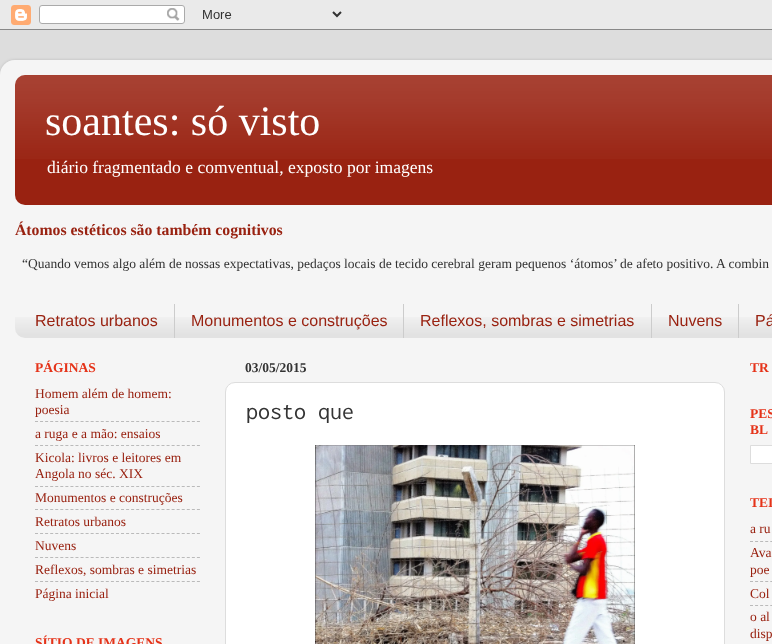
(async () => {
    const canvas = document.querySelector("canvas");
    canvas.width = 772;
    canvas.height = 644;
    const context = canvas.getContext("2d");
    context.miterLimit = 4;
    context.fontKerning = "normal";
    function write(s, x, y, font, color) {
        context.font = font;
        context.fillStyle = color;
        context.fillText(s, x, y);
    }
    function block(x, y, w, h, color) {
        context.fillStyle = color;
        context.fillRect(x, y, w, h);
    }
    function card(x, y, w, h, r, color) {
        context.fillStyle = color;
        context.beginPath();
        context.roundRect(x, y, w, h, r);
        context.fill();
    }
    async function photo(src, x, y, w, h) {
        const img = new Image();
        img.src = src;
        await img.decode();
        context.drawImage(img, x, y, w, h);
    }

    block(0, 0, 772, 644, "rgb(221, 221, 221)");
    await photo("media/1.png", 0, 0, 772, 30);
    context.save();
    context.beginPath();
    context.moveTo(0, 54);
    context.lineTo(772, 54);
    context.lineTo(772, 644);
    context.lineTo(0, 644);
    context.closePath();
    context.moveTo(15, 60);
    context.lineTo(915, 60);
    context.bezierCurveTo(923.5, 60, 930, 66.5, 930, 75);
    context.lineTo(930, 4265);
    context.bezierCurveTo(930, 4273.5, 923.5, 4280, 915, 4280);
    context.lineTo(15, 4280);
    context.bezierCurveTo(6.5, 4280, 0, 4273.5, 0, 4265);
    context.lineTo(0, 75);
    context.bezierCurveTo(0, 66.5, 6.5, 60, 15, 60);
    context.closePath();
    context.clip("evenodd");
    context.fillStyle = "rgba(0, 0, 0, 0.15)";
    context.filter = "blur(1.5px)";
    context.beginPath();
    context.roundRect(0, 60, 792, 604, 15);
    context.fill();
    context.filter = "none";
    context.restore();
    await photo("media/2.png", 0, 60, 772, 584);
    card(15, 75, 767, 130, 10, "rgb(153, 34, 17)");
    await photo("media/3.png", 15, 75, 757, 84);
    write("soantes: só visto", 45, 135, "42px Liberation Serif", "rgb(255, 255, 255)");
    write("diário fragmentado e comventual, exposto por imagens", 47, 173, "17.55px Liberation Serif", "rgb(255, 255, 255)");
    write("Átomos estéticos são também cognitivos", 15, 235, "bold 15.75px Liberation Serif", "rgb(153, 34, 17)");
    write("“Quando vemos algo além de nossas expectativas, pedaços locais de tecido cerebral geram pequenos ‘átomos’ de afeto positivo. A combin", 22, 268, "13.5px Liberation Serif", "rgb(51, 51, 51)");
    await photo("media/4.png", 15, 317, 757, 21);
    block(174, 304, 1, 34, "rgb(204, 204, 204)");
    write("Retratos urbanos", 35, 326, "16px Liberation Sans", "rgb(153, 34, 17)");
    block(403, 304, 1, 34, "rgb(204, 204, 204)");
    write("Monumentos e construções", 191, 326, "16px Liberation Sans", "rgb(153, 34, 17)");
    block(651, 304, 1, 34, "rgb(204, 204, 204)");
    write("Reflexos, sombras e simetrias", 420, 326, "16px Liberation Sans", "rgb(153, 34, 17)");
    block(738, 304, 1, 34, "rgb(204, 204, 204)");
    write("Nuvens", 668, 326, "16px Liberation Sans", "rgb(153, 34, 17)");
    write("Pá", 755, 326, "16px Liberation Sans", "rgb(153, 34, 17)");
    write("PÁGINAS", 35, 372, "bold 13.5px Liberation Serif", "rgb(229, 51, 25)");
    write("Homem além de homem:", 35, 398, "13.5px Liberation Serif", "rgb(153, 34, 17)");
    write("poesia", 35, 414, "13.5px Liberation Serif", "rgb(153, 34, 17)");
    context.beginPath();
    context.moveTo(35, 421.5);
    context.lineTo(200, 421.5);
    context.strokeStyle = "rgb(186, 186, 186)";
    context.setLineDash([3, 2.06]);
    context.stroke();
    write("a ruga e a mão: ensaios", 35, 438, "13.5px Liberation Serif", "rgb(153, 34, 17)");
    context.beginPath();
    context.moveTo(35, 445.5);
    context.lineTo(200, 445.5);
    context.stroke();
    write("Kicola: livros e leitores em", 35, 462, "13.5px Liberation Serif", "rgb(153, 34, 17)");
    write("Angola no séc. XIX", 35, 478, "13.5px Liberation Serif", "rgb(153, 34, 17)");
    context.beginPath();
    context.moveTo(35, 486.5);
    context.lineTo(200, 486.5);
    context.stroke();
    write("Monumentos e construções", 35, 502, "13.5px Liberation Serif", "rgb(153, 34, 17)");
    context.beginPath();
    context.moveTo(35, 509.5);
    context.lineTo(200, 509.5);
    context.stroke();
    write("Retratos urbanos", 35, 526, "13.5px Liberation Serif", "rgb(153, 34, 17)");
    context.beginPath();
    context.moveTo(35, 533.5);
    context.lineTo(200, 533.5);
    context.stroke();
    write("Nuvens", 35, 550, "13.5px Liberation Serif", "rgb(153, 34, 17)");
    context.beginPath();
    context.moveTo(35, 557.5);
    context.lineTo(200, 557.5);
    context.stroke();
    write("Reflexos, sombras e simetrias", 35, 574, "13.5px Liberation Serif", "rgb(153, 34, 17)");
    context.beginPath();
    context.moveTo(35, 581.5);
    context.lineTo(200, 581.5);
    context.stroke();
    write("Página inicial", 35, 598, "13.5px Liberation Serif", "rgb(153, 34, 17)");
    write("SÍTIO DE IMAGENS", 35, 647, "bold 13.5px Liberation Serif", "rgb(229, 51, 25)");
    write("03/05/2015", 245, 372, "bold 13.5px Liberation Serif", "rgb(51, 51, 51)");
    context.fillStyle = "rgb(255, 255, 255)";
    context.beginPath();
    context.roundRect(225.5, 382.5, 499, 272, 9.5);
    context.fill();
    context.strokeStyle = "rgb(221, 221, 221)";
    context.setLineDash([]);
    context.stroke();
    write("posto que", 246, 419, "24px Inconsolata", "rgb(51, 51, 51)");
    await photo("media/5.png", 315, 445, 320, 199);
    write("TR", 750, 372, "bold 13.5px Liberation Serif", "rgb(229, 51, 25)");
    write("PES", 750, 418, "bold 13.5px Liberation Serif", "rgb(229, 51, 25)");
    write("BL", 750, 434, "bold 13.5px Liberation Serif", "rgb(229, 51, 25)");
    context.fillStyle = "rgb(255, 255, 255)";
    context.beginPath();
    context.rect(750.5, 445.5, 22, 18);
    context.fill();
    context.stroke();
    write("TEI", 750, 507, "bold 13.5px Liberation Serif", "rgb(229, 51, 25)");
    write("a ru", 750, 533, "13.5px Liberation Serif", "rgb(153, 34, 17)");
    context.beginPath();
    context.moveTo(750, 541.5);
    context.lineTo(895, 541.5);
    context.moveTo(750, 581.5);
    context.lineTo(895, 581.5);
    context.strokeStyle = "rgb(186, 186, 186)";
    context.setLineDash([3, 2.07]);
    context.stroke();
    write("Ava", 750, 557, "13.5px Liberation Serif", "rgb(153, 34, 17)");
    write("poe", 750, 574, "13.5px Liberation Serif", "rgb(153, 34, 17)");
    write("Col", 750, 598, "13.5px Liberation Serif", "rgb(153, 34, 17)");
    context.beginPath();
    context.moveTo(750, 605.5);
    context.lineTo(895, 605.5);
    context.stroke();
    write("o al", 750, 621, "13.5px Liberation Serif", "rgb(153, 34, 17)");
    write("disp", 750, 638, "13.5px Liberation Serif", "rgb(153, 34, 17)");
})();
